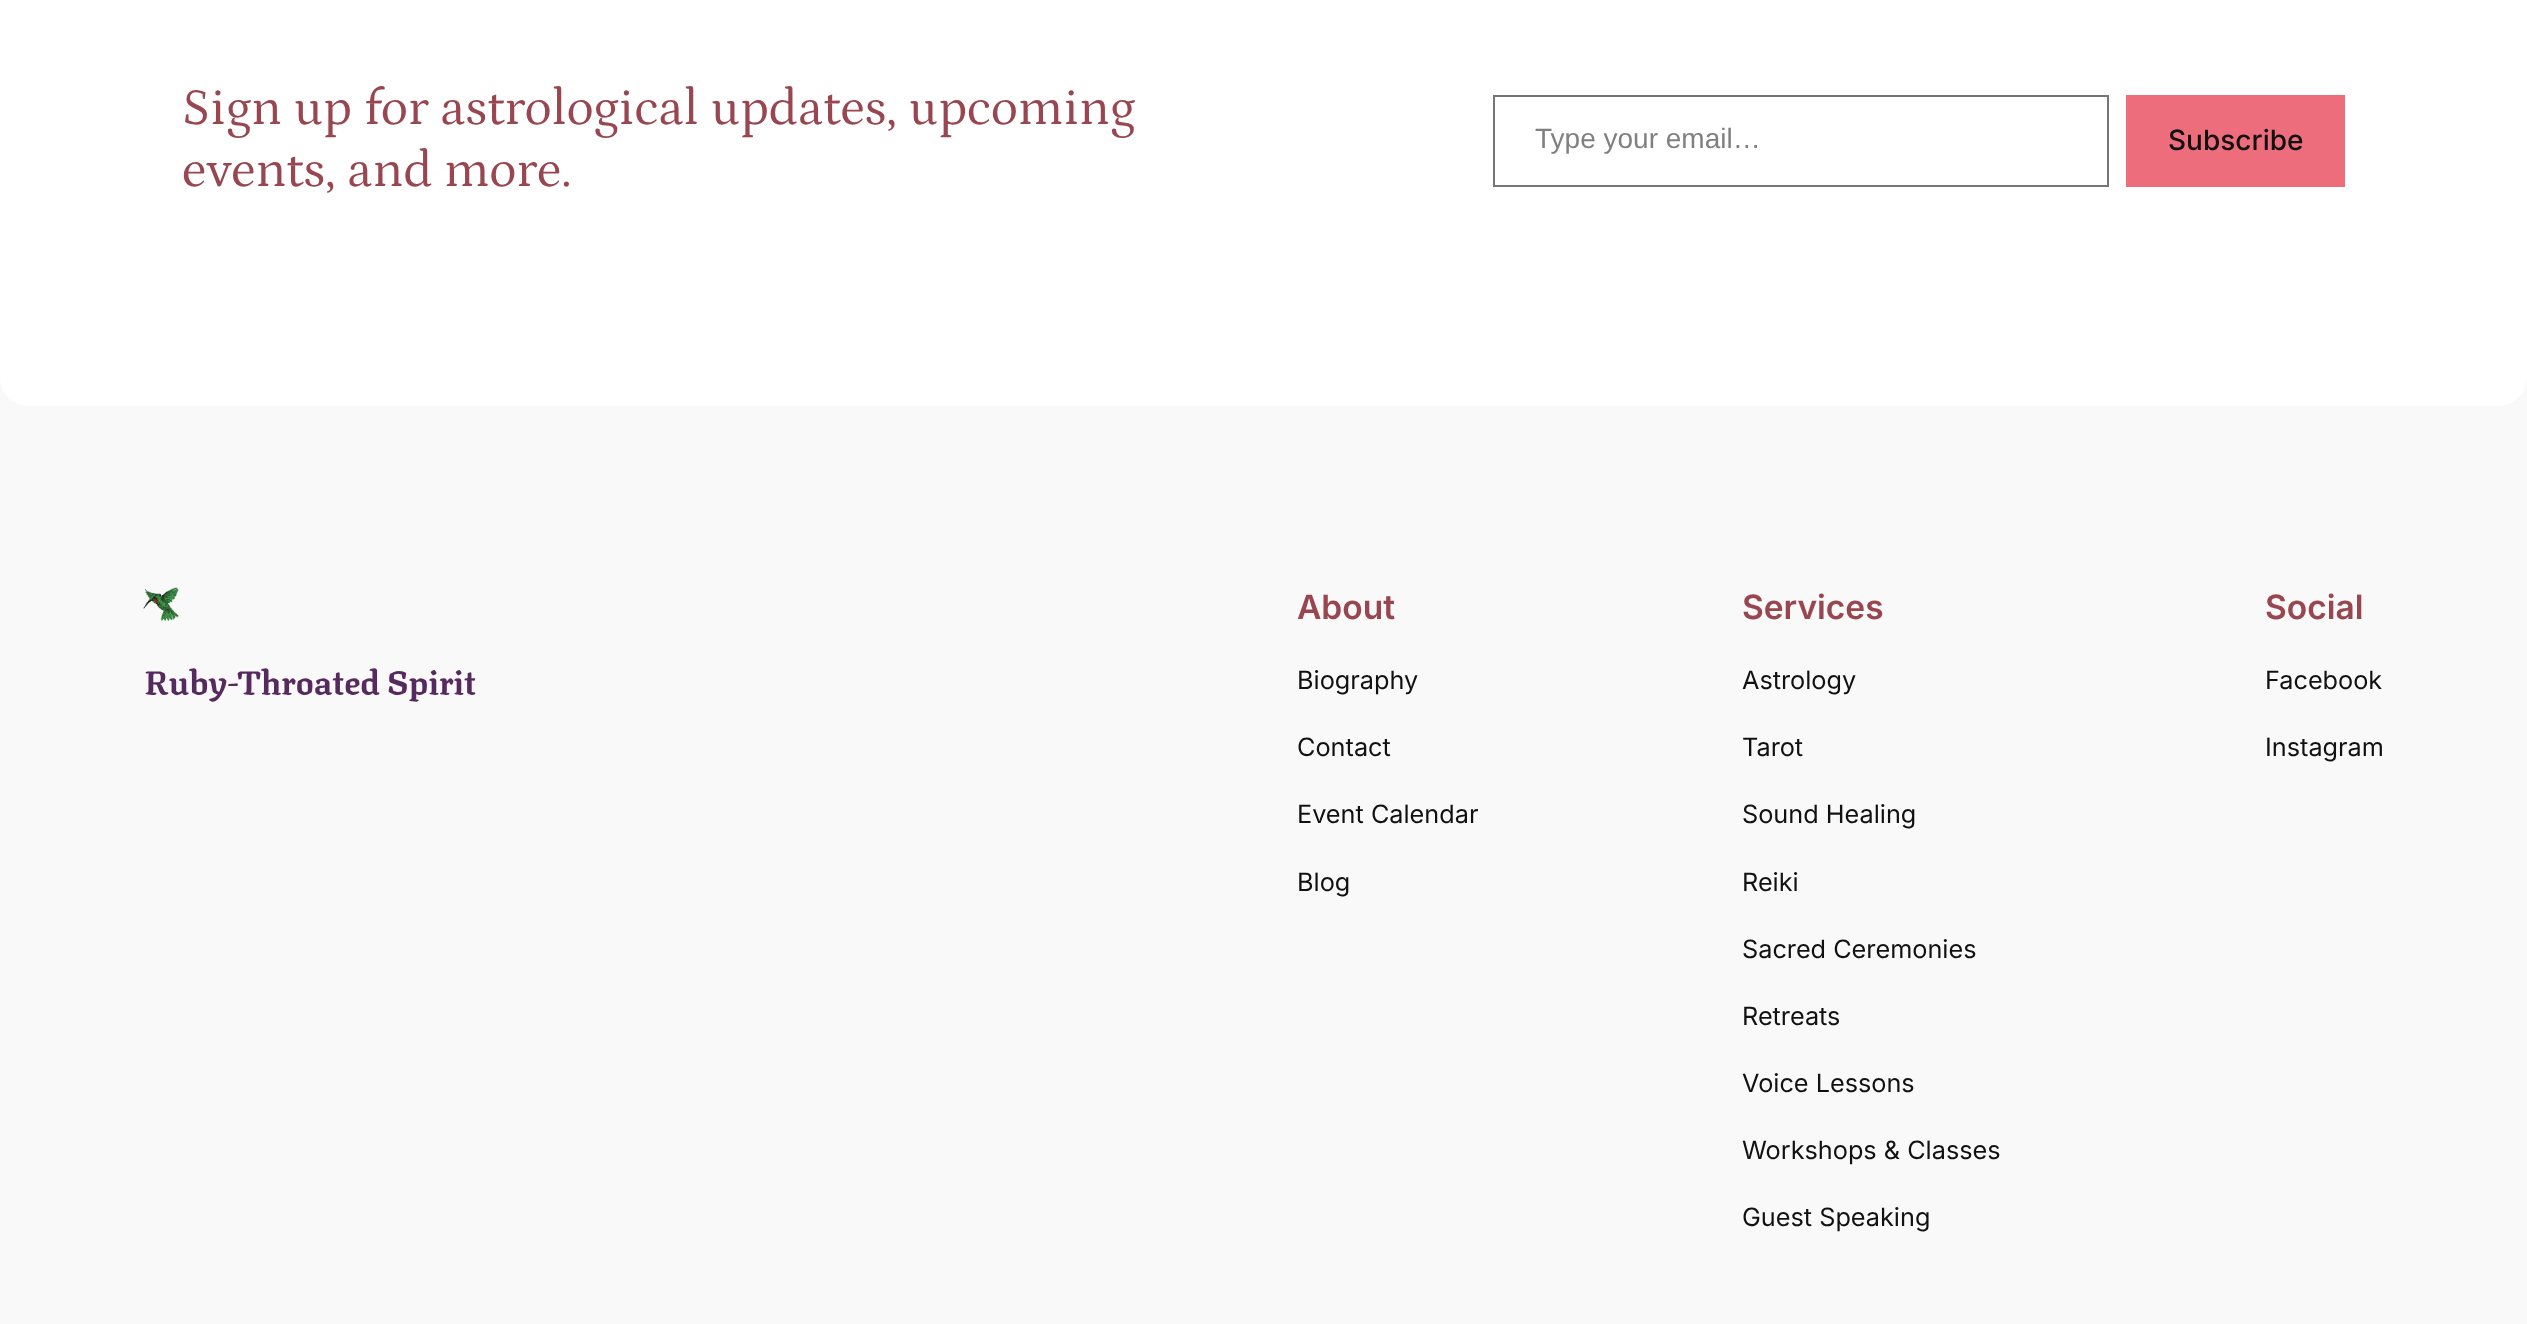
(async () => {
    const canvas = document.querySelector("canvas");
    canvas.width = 2527;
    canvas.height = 1324;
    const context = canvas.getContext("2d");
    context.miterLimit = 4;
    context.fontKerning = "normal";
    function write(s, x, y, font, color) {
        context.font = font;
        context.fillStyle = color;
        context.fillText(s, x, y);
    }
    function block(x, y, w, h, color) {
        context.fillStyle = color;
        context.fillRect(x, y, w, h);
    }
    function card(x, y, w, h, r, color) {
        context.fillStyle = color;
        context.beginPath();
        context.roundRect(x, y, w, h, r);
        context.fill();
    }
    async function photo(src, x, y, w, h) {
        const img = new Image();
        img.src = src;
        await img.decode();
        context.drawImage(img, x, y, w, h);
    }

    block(0, 0, 2527, 1324, "rgb(249, 249, 249)");
    card(0, -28, 2527, 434, 28, "rgb(255, 255, 255)");
    write("Sign up for astrological updates, upcoming", 182, 124, "51.75px Petrona", "rgb(152, 70, 80)");
    write("events, and more.", 182, 186, "51.75px Petrona", "rgb(152, 70, 80)");
    context.strokeStyle = "rgb(118, 118, 118)";
    context.lineWidth = 2;
    context.strokeRect(1494, 96, 614, 90);
    write("Type your email…", 1535, 148, "28px Liberation Sans", "rgb(128, 128, 128)");
    block(2126, 95, 219, 92, "rgb(237, 109, 124)");
    write("Subscribe", 2168, 150, "500 28px Inter", "rgb(17, 17, 17)");
    await photo("media/1.png", 143, 587, 36, 34);
    write("Ruby-Throated Spirit", 144, 695, "bold 33.5px Texturina", "rgb(86, 42, 94)");
    write("About", 1297, 619, "600 33.5px Inter", "rgb(152, 70, 80)");
    write("Biography", 1297, 689, "25.25px Inter", "rgb(17, 17, 17)");
    write("Contact", 1297, 756, "25.25px Inter", "rgb(17, 17, 17)");
    write("Event Calendar", 1297, 823, "25.25px Inter", "rgb(17, 17, 17)");
    write("Blog", 1297, 891, "25.25px Inter", "rgb(17, 17, 17)");
    write("Services", 1742, 619, "600 33.5px Inter", "rgb(152, 70, 80)");
    write("Astrology", 1742, 689, "25.25px Inter", "rgb(17, 17, 17)");
    write("Tarot", 1742, 756, "25.25px Inter", "rgb(17, 17, 17)");
    write("Sound Healing", 1742, 823, "25.25px Inter", "rgb(17, 17, 17)");
    write("Reiki", 1742, 891, "25.25px Inter", "rgb(17, 17, 17)");
    write("Sacred Ceremonies", 1742, 958, "25.25px Inter", "rgb(17, 17, 17)");
    write("Retreats", 1742, 1025, "25.25px Inter", "rgb(17, 17, 17)");
    write("Voice Lessons", 1742, 1092, "25.25px Inter", "rgb(17, 17, 17)");
    write("Workshops & Classes", 1742, 1159, "25.25px Inter", "rgb(17, 17, 17)");
    write("Guest Speaking", 1742, 1226, "25.25px Inter", "rgb(17, 17, 17)");
    write("Social", 2265, 619, "600 33.5px Inter", "rgb(152, 70, 80)");
    write("Facebook", 2265, 689, "25.25px Inter", "rgb(17, 17, 17)");
    write("Instagram", 2265, 756, "25.25px Inter", "rgb(17, 17, 17)");
})();
